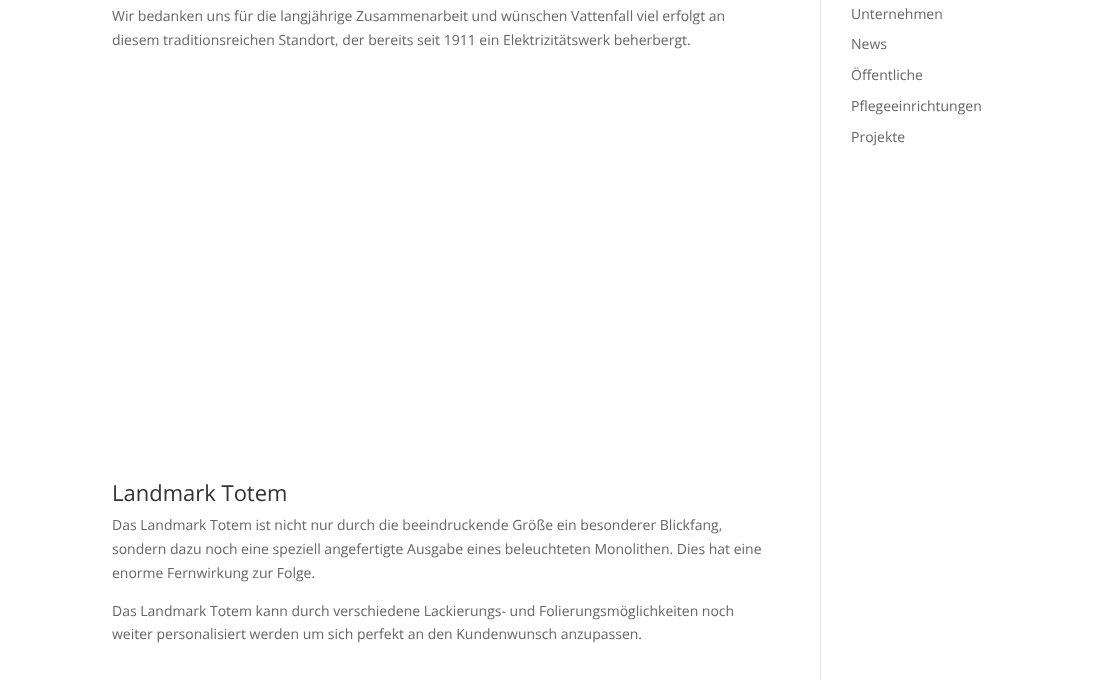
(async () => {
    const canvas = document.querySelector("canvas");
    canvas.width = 1120;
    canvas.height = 680;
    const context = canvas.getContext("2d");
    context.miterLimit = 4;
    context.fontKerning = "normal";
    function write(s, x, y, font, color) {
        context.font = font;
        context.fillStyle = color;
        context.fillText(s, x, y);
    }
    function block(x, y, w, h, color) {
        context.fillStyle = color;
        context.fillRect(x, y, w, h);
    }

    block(0, 0, 1120, 680, "rgb(255, 255, 255)");
    block(820, 0, 1, 680, "rgb(226, 226, 226)");
    write("Wir bedanken uns für die langjährige Zusammenarbeit und wünschen Vattenfall viel erfolgt an", 112, 21, "14px Open Sans", "rgb(102, 102, 102)");
    write("diesem traditionsreichen Standort, der bereits seit 1911 ein Elektrizitätswerk beherbergt.", 112, 45, "14px Open Sans", "rgb(102, 102, 102)");
    write("Landmark Totem", 112, 501, "22px Open Sans", "rgb(51, 51, 51)");
    write("Das Landmark Totem ist nicht nur durch die beeindruckende Größe ein besonderer Blickfang,", 112, 530, "14px Open Sans", "rgb(102, 102, 102)");
    write("sondern dazu noch eine speziell angefertigte Ausgabe eines beleuchteten Monolithen. Dies hat eine", 112, 554, "14px Open Sans", "rgb(102, 102, 102)");
    write("enorme Fernwirkung zur Folge.", 112, 578, "14px Open Sans", "rgb(102, 102, 102)");
    write("Das Landmark Totem kann durch verschiedene Lackierungs- und Folierungsmöglichkeiten noch", 112, 616, "14px Open Sans", "rgb(102, 102, 102)");
    write("weiter personalisiert werden um sich perfekt an den Kundenwunsch anzupassen.", 112, 639, "14px Open Sans", "rgb(102, 102, 102)");
    write("Unternehmen", 851, 19, "14px Open Sans", "rgb(102, 102, 102)");
    write("News", 851, 49, "14px Open Sans", "rgb(102, 102, 102)");
    write("Öffentliche", 851, 80, "14px Open Sans", "rgb(102, 102, 102)");
    write("Pflegeeinrichtungen", 851, 111, "14px Open Sans", "rgb(102, 102, 102)");
    write("Projekte", 851, 142, "14px Open Sans", "rgb(102, 102, 102)");
})();
